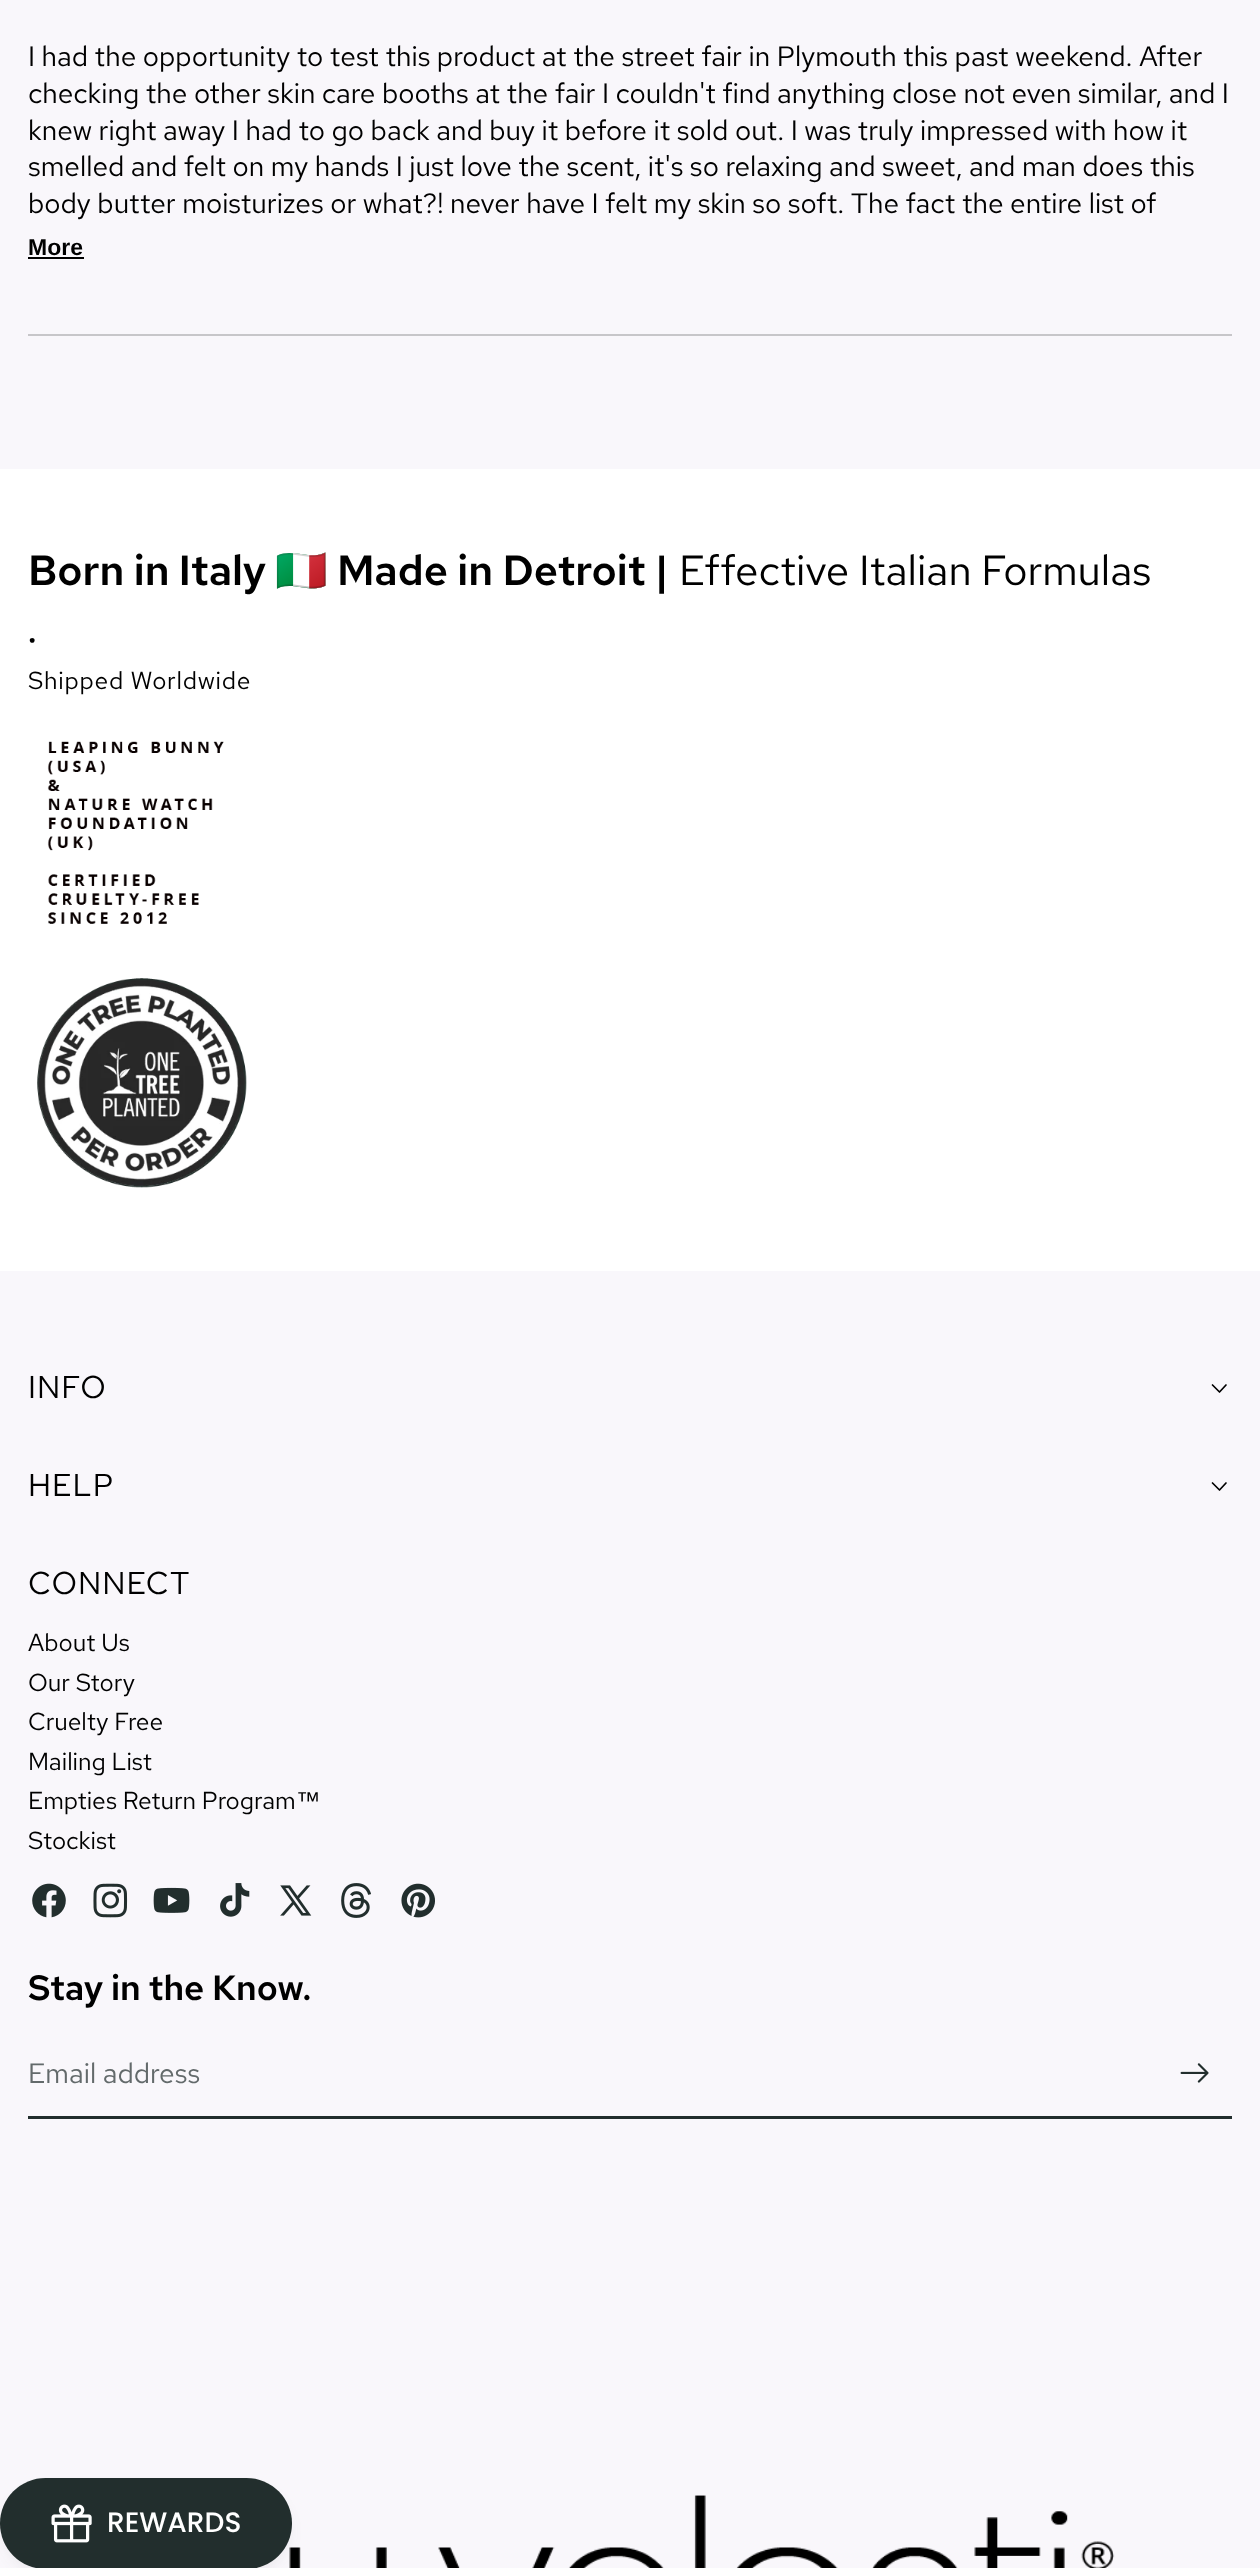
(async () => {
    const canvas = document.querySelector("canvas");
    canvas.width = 1260;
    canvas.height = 2568;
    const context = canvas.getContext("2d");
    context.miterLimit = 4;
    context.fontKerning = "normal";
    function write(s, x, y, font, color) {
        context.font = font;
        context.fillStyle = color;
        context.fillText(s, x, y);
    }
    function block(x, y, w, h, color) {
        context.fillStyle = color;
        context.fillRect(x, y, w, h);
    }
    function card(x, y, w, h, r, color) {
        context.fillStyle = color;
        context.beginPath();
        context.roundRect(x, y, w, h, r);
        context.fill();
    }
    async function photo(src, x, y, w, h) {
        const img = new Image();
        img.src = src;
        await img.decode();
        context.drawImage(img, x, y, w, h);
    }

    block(0, 0, 1260, 2568, "rgb(255, 255, 255)");
    block(0, 0, 1260, 469, "rgb(249, 247, 251)");
    block(28, 334, 1204, 2, "rgb(199, 198, 201)");
    write("I had the opportunity to test this product at the street fair in Plymouth this past weekend. After", 28, 66, "28px Red Hat Text", "rgb(0, 0, 0)");
    write("checking the other skin care booths at the fair I couldn't find anything close not even similar, and I", 28, 103, "28px Red Hat Text", "rgb(0, 0, 0)");
    write("knew right away I had to go back and buy it before it sold out. I was truly impressed with how it", 28, 140, "28px Red Hat Text", "rgb(0, 0, 0)");
    write("smelled and felt on my hands I just love the scent, it's so relaxing and sweet, and man does this", 28, 176, "28px Red Hat Text", "rgb(0, 0, 0)");
    write("body butter moisturizes or what?! never have I felt my skin so soft. The fact the entire list of", 28, 213, "28px Red Hat Text", "rgb(0, 0, 0)");
    write("More", 28, 255, "bold 23px Liberation Sans", "rgb(0, 0, 0)");
    block(28, 257, 56, 2, "rgb(0, 0, 0)");
    write("Born in Italy", 28, 585, "600 42px Red Hat Text", "rgb(0, 0, 0)");
    write("🇮🇹", 275, 585, "42px Noto Color Emoji", "rgb(0, 0, 0)");
    write("Made in Detroit |", 337, 585, "600 42px Red Hat Text", "rgb(0, 0, 0)");
    write("Effective Italian Formulas", 679, 585, "42px Red Hat Text", "rgb(0, 0, 0)");
    context.letterSpacing = "0.75px";
    write("•", 28, 649, "24.5px Red Hat Text", "rgb(0, 0, 0)");
    write("Shipped Worldwide", 28, 689, "24.5px Red Hat Text", "rgb(0, 0, 0)");
    await photo("media/1.png", 47, 741, 177, 183);
    await photo("media/2.png", 37, 978, 210, 210);
    block(0, 1271, 1260, 1297, "rgb(249, 247, 251)");
    context.letterSpacing = "1px";
    write("INFO", 28, 1398, "31.5px Red Hat Text", "rgb(0, 0, 0)");
    context.beginPath();
    context.moveTo(1226, 1385);
    context.lineTo(1219.5, 1392);
    context.lineTo(1212.5, 1385);
    context.strokeStyle = "rgb(0, 0, 0)";
    context.lineWidth = 1.7;
    context.lineCap = "round";
    context.lineJoin = "round";
    context.stroke();
    write("HELP", 28, 1496, "31.5px Red Hat Text", "rgb(0, 0, 0)");
    context.beginPath();
    context.moveTo(1226, 1483);
    context.lineTo(1219.5, 1490);
    context.lineTo(1212.5, 1483);
    context.stroke();
    write("CONNECT", 28, 1594, "31.5px Red Hat Text", "rgb(0, 0, 0)");
    context.letterSpacing = "0px";
    write("About Us", 28, 1651, "24.5px Red Hat Text", "rgb(0, 0, 0)");
    write("Our Story", 28, 1691, "24.5px Red Hat Text", "rgb(0, 0, 0)");
    write("Cruelty Free", 28, 1730, "24.5px Red Hat Text", "rgb(0, 0, 0)");
    write("Mailing List", 28, 1770, "24.5px Red Hat Text", "rgb(0, 0, 0)");
    write("Empties Return Program", 28, 1809, "24.5px Red Hat Text", "rgb(0, 0, 0)");
    write("™", 296, 1809, "24.5px Liberation Sans", "rgb(0, 0, 0)");
    write("Stockist", 28, 1849, "24.5px Red Hat Text", "rgb(0, 0, 0)");
    await photo("media/3.png", 32, 1883, 34, 35);
    await photo("media/4.png", 93, 1883, 35, 35);
    await photo("media/5.png", 153, 1887, 37, 26);
    await photo("media/6.png", 220, 1883, 30, 34);
    await photo("media/7.png", 280, 1885, 32, 31);
    await photo("media/8.png", 341, 1883, 30, 35);
    await photo("media/9.png", 401, 1883, 34, 35);
    write("Stay in the Know.", 28, 2000, "600 35px Red Hat Text", "rgb(0, 0, 0)");
    block(28, 2116, 1204, 3, "rgb(34, 46, 45)");
    write("Email address", 28, 2083, "28px Red Hat Text", "rgb(99, 106, 107)");
    await photo("media/10.png", 1180, 2063, 29, 20);
    await photo("media/12.png", 256, 2495, 859, 73);
    context.fillStyle = "rgba(68, 68, 68, 0.08)";
    context.filter = "blur(7px)";
    context.beginPath();
    context.roundRect(4, 2489, 285, 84, 42);
    context.fill();
    context.filter = "none";
    card(0, 2478, 292, 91, 45.5, "rgb(34, 46, 45)");
    await photo("media/11.png", 51, 2504, 41, 39);
    write("REWARDS", 107, 2532, "500 28px Poppins", "rgb(255, 255, 255)");
})();
